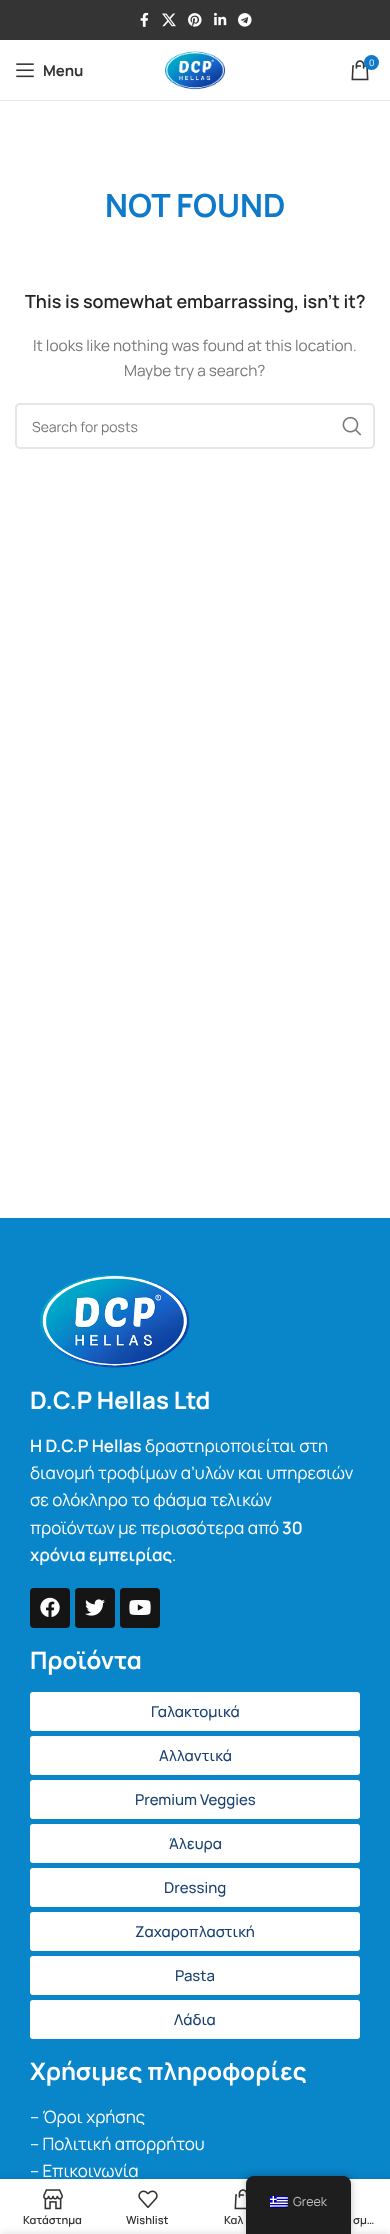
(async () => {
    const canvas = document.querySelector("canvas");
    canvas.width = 390;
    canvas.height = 2234;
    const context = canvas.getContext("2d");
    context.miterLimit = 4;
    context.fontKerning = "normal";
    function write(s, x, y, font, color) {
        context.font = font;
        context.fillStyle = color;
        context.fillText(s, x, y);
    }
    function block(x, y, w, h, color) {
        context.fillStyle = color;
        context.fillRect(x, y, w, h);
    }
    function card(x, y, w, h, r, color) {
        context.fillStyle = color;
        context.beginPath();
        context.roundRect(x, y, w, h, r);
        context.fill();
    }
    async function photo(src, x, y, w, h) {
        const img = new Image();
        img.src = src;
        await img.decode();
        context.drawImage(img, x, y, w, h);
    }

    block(0, 0, 390, 2234, "rgb(255, 255, 255)");
    block(0, 0, 390, 40, "rgb(52, 52, 52)");
    await photo("media/1.png", 140, 12, 9, 15);
    await photo("media/2.png", 162, 13, 14, 14);
    await photo("media/3.png", 188, 13, 14, 14);
    await photo("media/4.png", 214, 12, 13, 14);
    await photo("media/5.png", 238, 13, 14, 14);
    block(0, 100, 390, 1, "rgb(230, 230, 230)");
    await photo("media/6.png", 165, 51, 61, 39);
    await photo("media/7.png", 351, 60, 18, 21);
    context.fillStyle = "rgb(15, 122, 202)";
    context.beginPath();
    context.arc(371.5, 62.5, 7.5, 0, Math.PI * 2);
    context.fill();
    write("0", 369, 66, "9px Manrope", "rgb(255, 255, 255)");
    await photo("media/8.png", 16, 63, 18, 15);
    write("Menu", 43, 76, "bold 15px Manrope", "rgb(51, 51, 51)");
    write("NOT FOUND", 105, 217, "bold 32px Manrope", "rgb(15, 122, 202)");
    write("This is somewhat embarrassing, isn’t it?", 25, 308, "600 18px Manrope", "rgb(36, 36, 36)");
    write("It looks like nothing was found at this location.", 33, 351, "15.4px Manrope", "rgb(119, 119, 119)");
    write("Maybe try a search?", 124, 376, "15.4px Manrope", "rgb(119, 119, 119)");
    context.beginPath();
    context.roundRect(16, 404, 358, 44, 4);
    context.strokeStyle = "rgb(230, 230, 230)";
    context.lineWidth = 2;
    context.stroke();
    write("Search for posts", 32, 432, "14px Manrope", "rgb(119, 119, 119)");
    await photo("media/9.png", 342, 416, 20, 20);
    block(0, 1218, 390, 961, "rgb(9, 133, 201)");
    await photo("media/10.png", 40, 1275, 150, 93);
    write("D.C.P Hellas Ltd", 30, 1409, "bold 24px Manrope", "rgb(255, 255, 255)");
    write("H D.C.P Hellas", 30, 1452, "600 17px Manrope", "rgb(255, 255, 255)");
    write("δραστηριοποιείται στη", 145, 1452, "17px Manrope", "rgb(255, 255, 255)");
    write("διανομή τροφίμων α’υλών και υπηρεσιών", 30, 1479, "17px Manrope", "rgb(255, 255, 255)");
    write("σε ολόκληρο το φάσμα τελικών", 30, 1506, "17px Manrope", "rgb(255, 255, 255)");
    write("προϊόντων με περισσότερα από", 30, 1534, "17px Manrope", "rgb(255, 255, 255)");
    write("30", 282, 1534, "600 17px Manrope", "rgb(255, 255, 255)");
    write("χρόνια εμπειρίας", 30, 1561, "600 17px Manrope", "rgb(255, 255, 255)");
    write(".", 172, 1561, "17px Manrope", "rgb(255, 255, 255)");
    card(30, 1588, 40, 40, 4, "rgb(21, 21, 21)");
    await photo("media/11.png", 40, 1597, 20, 20);
    card(75, 1588, 40, 40, 4, "rgb(21, 21, 21)");
    await photo("media/12.png", 85, 1599, 20, 17);
    card(120, 1588, 40, 40, 4, "rgb(21, 21, 21)");
    await photo("media/13.png", 129, 1600, 22, 15);
    write("Προϊόντα", 30, 1669, "bold 24px Manrope", "rgb(255, 255, 255)");
    card(30, 1692, 330, 39, 3, "rgb(255, 255, 255)");
    write("Γαλακτομικά", 151, 1717, "500 15px Manrope", "rgb(25, 65, 113)");
    card(30, 1736, 330, 39, 3, "rgb(255, 255, 255)");
    write("Αλλαντικά", 159, 1761, "500 15px Manrope", "rgb(25, 65, 113)");
    card(30, 1780, 330, 39, 3, "rgb(255, 255, 255)");
    write("Premium Veggies", 135, 1805, "500 15px Manrope", "rgb(25, 65, 113)");
    card(30, 1824, 330, 39, 3, "rgb(255, 255, 255)");
    write("Άλευρα", 169, 1849, "500 15px Manrope", "rgb(25, 65, 113)");
    card(30, 1868, 330, 39, 3, "rgb(255, 255, 255)");
    write("Dressing", 164, 1893, "500 15px Manrope", "rgb(25, 65, 113)");
    card(30, 1912, 330, 39, 3, "rgb(255, 255, 255)");
    write("Ζαχαροπλαστική", 135, 1937, "500 15px Manrope", "rgb(25, 65, 113)");
    card(30, 1956, 330, 39, 3, "rgb(255, 255, 255)");
    write("Pasta", 175, 1981, "500 15px Manrope", "rgb(25, 65, 113)");
    card(30, 2000, 330, 39, 3, "rgb(255, 255, 255)");
    write("Λάδια", 174, 2025, "500 15px Manrope", "rgb(25, 65, 113)");
    write("Χρήσιμες πληροφορίες", 30, 2080, "bold 24px Manrope", "rgb(255, 255, 255)");
    write("– Όροι χρήσης", 30, 2123, "17px Manrope", "rgb(255, 255, 255)");
    write("– Πολιτική απορρήτου", 30, 2150, "17px Manrope", "rgb(255, 255, 255)");
    write("– Επικοινωνία", 30, 2177, "17px Manrope", "rgb(255, 255, 255)");
    context.fillStyle = "rgba(0, 0, 0, 0.12)";
    context.filter = "blur(4.5px)";
    context.beginPath();
    context.rect(0, 2179, 390, 55);
    context.fill();
    context.filter = "none";
    block(0, 2179, 390, 55, "rgb(255, 255, 255)");
    await photo("media/17.png", 234, 2189, 12, 21);
    context.fillStyle = "rgba(0, 0, 0, 0.25)";
    context.filter = "blur(4px)";
    context.beginPath();
    context.roundRect(246, 2176, 105, 58, 8);
    context.fill();
    context.filter = "none";
    context.fillStyle = "rgba(0, 0, 0, 0.14)";
    context.filter = "blur(4.5px)";
    context.beginPath();
    context.rect(0, 2234, 390, 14);
    context.fill();
    context.filter = "none";
    context.fillStyle = "rgb(30, 30, 30)";
    context.beginPath();
    context.roundRect(246, 2176, 105, 58, [8, 8, 0, 0]);
    context.fill();
    await photo("media/14.png", 270, 2196, 18, 12);
    write("Greek", 293, 2206, "12.5px Manrope", "rgb(189, 189, 189)");
    await photo("media/15.png", 43, 2189, 20, 21);
    write("Κατάστημα", 23, 2224, "600 11px Manrope", "rgb(51, 51, 51)");
    await photo("media/16.png", 138, 2190, 20, 18);
    write("Wishlist", 126, 2224, "600 11px Manrope", "rgb(51, 51, 51)");
    write("Καλ", 224, 2224, "600 11px Manrope", "rgb(51, 51, 51)");
    write("σμ…", 353, 2224, "600 11px Manrope", "rgb(51, 51, 51)");
})();
